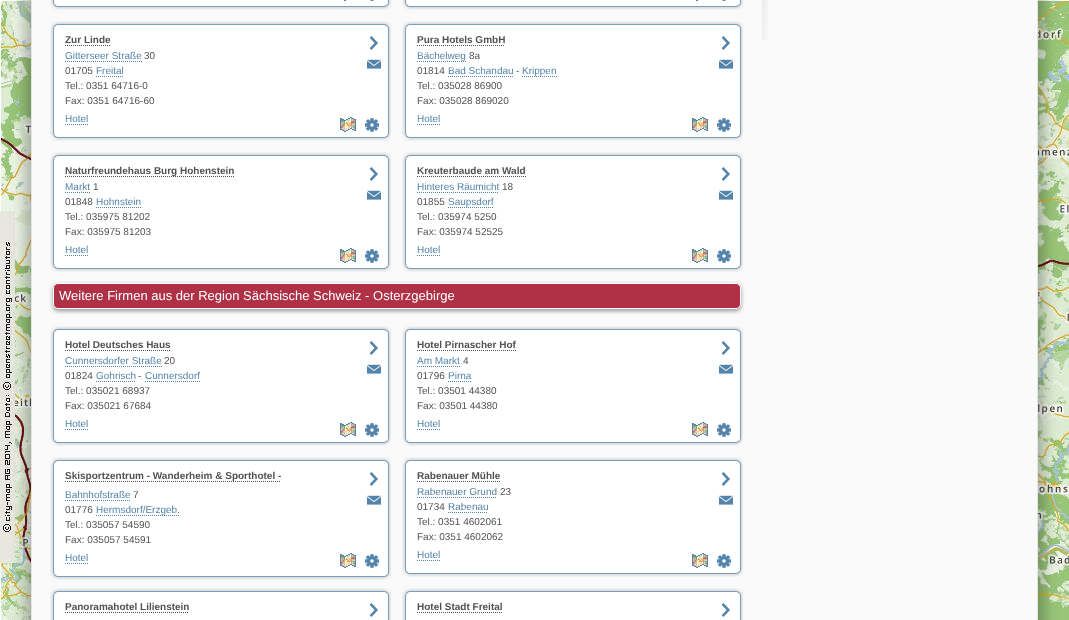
(async () => {
    const canvas = document.querySelector("canvas");
    canvas.width = 1069;
    canvas.height = 620;
    const context = canvas.getContext("2d");
    context.miterLimit = 4;
    context.fontKerning = "normal";
    function write(s, x, y, font, color) {
        context.font = font;
        context.fillStyle = color;
        context.fillText(s, x, y);
    }
    function block(x, y, w, h, color) {
        context.fillStyle = color;
        context.fillRect(x, y, w, h);
    }
    async function photo(src, x, y, w, h) {
        const img = new Image();
        img.src = src;
        await img.decode();
        context.drawImage(img, x, y, w, h);
    }

    block(0, 0, 1069, 620, "rgb(255, 255, 255)");
    await photo("media/1.png", 0, 0, 1069, 620);
    context.fillStyle = "rgba(0, 0, 0, 0.3)";
    context.filter = "blur(7.5px)";
    context.beginPath();
    context.roundRect(26, -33, 1017, 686, 10);
    context.fill();
    context.filter = "none";
    context.fillStyle = "rgb(250, 250, 250)";
    context.beginPath();
    context.rect(31.5, -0.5, 1006, 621);
    context.fill();
    context.strokeStyle = "rgb(227, 228, 232)";
    context.stroke();
    await photo("media/2.png", 762, 0, 6, 40);
    await photo("media/3.png", 50, 0, 341, 1);
    block(344, 0, 2, 1, "rgb(84, 132, 171)");
    await photo("media/4.png", 370, 0, 4, 1);
    await photo("media/5.png", 50, 1, 341, 9);
    await photo("media/3.png", 402, 0, 341, 1);
    block(696, 0, 2, 1, "rgb(84, 132, 171)");
    await photo("media/4.png", 722, 0, 4, 1);
    await photo("media/5.png", 402, 1, 341, 9);
    await photo("media/6.png", 50, 21, 341, 9);
    await photo("media/7.png", 50, 30, 341, 102);
    write("Zur Linde", 65, 43, "bold 10px Liberation Sans", "rgb(82, 82, 82)");
    context.beginPath();
    context.moveTo(65, 45.5);
    context.lineTo(111, 45.5);
    context.strokeStyle = "rgb(82, 82, 82)";
    context.setLineDash([1, 1]);
    context.stroke();
    await photo("media/8.png", 369, 36, 9, 14);
    await photo("media/9.png", 367, 59, 14, 10);
    write("Gitterseer Straße", 65, 59, "10px Liberation Sans", "rgb(84, 132, 171)");
    context.beginPath();
    context.moveTo(65, 61.5);
    context.lineTo(142, 61.5);
    context.strokeStyle = "rgb(84, 132, 171)";
    context.stroke();
    write("30", 144, 59, "10px Liberation Sans", "rgb(82, 82, 82)");
    write("01705", 65, 74, "10px Liberation Sans", "rgb(82, 82, 82)");
    write("Freital", 96, 74, "10px Liberation Sans", "rgb(84, 132, 171)");
    context.beginPath();
    context.moveTo(96, 76.5);
    context.lineTo(123, 76.5);
    context.stroke();
    write("Tel.: 0351 64716-0", 65, 89, "10px Liberation Sans", "rgb(82, 82, 82)");
    write("Fax: 0351 64716-60", 65, 104, "10px Liberation Sans", "rgb(82, 82, 82)");
    write("Hotel", 65, 122, "10px Liberation Sans", "rgb(84, 132, 171)");
    context.beginPath();
    context.moveTo(65, 124.5);
    context.lineTo(88, 124.5);
    context.stroke();
    await photo("media/10.png", 340, 117, 16, 15);
    await photo("media/11.png", 365, 118, 14, 14);
    await photo("media/5.png", 50, 132, 341, 9);
    await photo("media/6.png", 402, 21, 341, 9);
    await photo("media/7.png", 402, 30, 341, 102);
    write("Pura Hotels GmbH", 417, 43, "bold 10px Liberation Sans", "rgb(82, 82, 82)");
    context.beginPath();
    context.moveTo(417, 45.5);
    context.lineTo(505, 45.5);
    context.strokeStyle = "rgb(82, 82, 82)";
    context.stroke();
    await photo("media/8.png", 721, 36, 9, 14);
    await photo("media/9.png", 719, 59, 14, 10);
    context.beginPath();
    context.moveTo(417, 61.5);
    context.lineTo(466, 61.5);
    context.strokeStyle = "rgb(84, 132, 171)";
    context.stroke();
    write("Bächelweg", 417, 59, "10px Liberation Sans", "rgb(84, 132, 171)");
    write("8a", 469, 59, "10px Liberation Sans", "rgb(82, 82, 82)");
    write("01814", 417, 74, "10px Liberation Sans", "rgb(82, 82, 82)");
    write("Bad Schandau", 448, 74, "10px Liberation Sans", "rgb(84, 132, 171)");
    context.beginPath();
    context.moveTo(448, 76.5);
    context.lineTo(513, 76.5);
    context.stroke();
    write("-", 516, 74, "10px Liberation Sans", "rgb(82, 82, 82)");
    context.beginPath();
    context.moveTo(522, 76.5);
    context.lineTo(557, 76.5);
    context.stroke();
    write("Krippen", 522, 74, "10px Liberation Sans", "rgb(84, 132, 171)");
    write("Tel.: 035028 86900", 417, 89, "10px Liberation Sans", "rgb(82, 82, 82)");
    write("Fax: 035028 869020", 417, 104, "10px Liberation Sans", "rgb(82, 82, 82)");
    write("Hotel", 417, 122, "10px Liberation Sans", "rgb(84, 132, 171)");
    context.beginPath();
    context.moveTo(417, 124.5);
    context.lineTo(440, 124.5);
    context.stroke();
    await photo("media/10.png", 692, 117, 16, 15);
    await photo("media/11.png", 717, 118, 14, 14);
    await photo("media/5.png", 402, 132, 341, 9);
    await photo("media/6.png", 50, 152, 341, 9);
    await photo("media/7.png", 50, 161, 341, 102);
    context.beginPath();
    context.moveTo(65, 176.5);
    context.lineTo(234, 176.5);
    context.strokeStyle = "rgb(82, 82, 82)";
    context.stroke();
    write("Naturfreundehaus Burg Hohenstein", 65, 174, "bold 10px Liberation Sans", "rgb(82, 82, 82)");
    await photo("media/8.png", 369, 167, 9, 14);
    await photo("media/9.png", 367, 190, 14, 10);
    write("Markt", 65, 190, "10px Liberation Sans", "rgb(84, 132, 171)");
    context.beginPath();
    context.moveTo(65, 192.5);
    context.lineTo(90, 192.5);
    context.strokeStyle = "rgb(84, 132, 171)";
    context.stroke();
    write("1", 93, 190, "10px Liberation Sans", "rgb(82, 82, 82)");
    write("01848", 65, 205, "10px Liberation Sans", "rgb(82, 82, 82)");
    write("Hohnstein", 96, 205, "10px Liberation Sans", "rgb(84, 132, 171)");
    context.beginPath();
    context.moveTo(96, 207.5);
    context.lineTo(141, 207.5);
    context.stroke();
    write("Tel.: 035975 81202", 65, 220, "10px Liberation Sans", "rgb(82, 82, 82)");
    write("Fax: 035975 81203", 65, 235, "10px Liberation Sans", "rgb(82, 82, 82)");
    write("Hotel", 65, 253, "10px Liberation Sans", "rgb(84, 132, 171)");
    context.beginPath();
    context.moveTo(65, 255.5);
    context.lineTo(88, 255.5);
    context.stroke();
    await photo("media/10.png", 340, 248, 16, 15);
    await photo("media/11.png", 365, 249, 14, 14);
    await photo("media/5.png", 50, 263, 341, 9);
    await photo("media/6.png", 402, 152, 341, 9);
    await photo("media/7.png", 402, 161, 341, 102);
    write("Kreuterbaude am Wald", 417, 174, "bold 10px Liberation Sans", "rgb(82, 82, 82)");
    context.beginPath();
    context.moveTo(417, 176.5);
    context.lineTo(526, 176.5);
    context.strokeStyle = "rgb(82, 82, 82)";
    context.stroke();
    await photo("media/8.png", 721, 167, 9, 14);
    await photo("media/9.png", 719, 190, 14, 10);
    write("Hinteres Räumicht", 417, 190, "10px Liberation Sans", "rgb(84, 132, 171)");
    context.beginPath();
    context.moveTo(417, 192.5);
    context.lineTo(499, 192.5);
    context.strokeStyle = "rgb(84, 132, 171)";
    context.stroke();
    write("18", 502, 190, "10px Liberation Sans", "rgb(82, 82, 82)");
    write("01855", 417, 205, "10px Liberation Sans", "rgb(82, 82, 82)");
    context.beginPath();
    context.moveTo(448, 207.5);
    context.lineTo(493, 207.5);
    context.stroke();
    write("Saupsdorf", 448, 205, "10px Liberation Sans", "rgb(84, 132, 171)");
    write("Tel.: 035974 5250", 417, 220, "10px Liberation Sans", "rgb(82, 82, 82)");
    write("Fax: 035974 52525", 417, 235, "10px Liberation Sans", "rgb(82, 82, 82)");
    write("Hotel", 417, 253, "10px Liberation Sans", "rgb(84, 132, 171)");
    context.beginPath();
    context.moveTo(417, 255.5);
    context.lineTo(440, 255.5);
    context.stroke();
    await photo("media/10.png", 692, 248, 16, 15);
    await photo("media/11.png", 717, 249, 14, 14);
    await photo("media/5.png", 402, 263, 341, 9);
    context.fillStyle = "rgba(0, 0, 0, 0.4)";
    context.filter = "blur(2px)";
    context.beginPath();
    context.roundRect(53, 285, 688, 26, 5);
    context.fill();
    context.filter = "none";
    context.fillStyle = "rgb(175, 49, 70)";
    context.beginPath();
    context.roundRect(53.5, 283.5, 687, 25, 4.5);
    context.fill();
    context.strokeStyle = "rgb(255, 255, 255)";
    context.setLineDash([]);
    context.stroke();
    write("Weitere Firmen aus der Region Sächsische Schweiz - Osterzgebirge", 59, 300, "13px Liberation Sans", "rgb(255, 255, 255)");
    await photo("media/6.png", 50, 326, 341, 9);
    await photo("media/7.png", 50, 335, 341, 102);
    write("Hotel Deutsches Haus", 65, 348, "bold 10px Liberation Sans", "rgb(82, 82, 82)");
    context.beginPath();
    context.moveTo(65, 350.5);
    context.lineTo(171, 350.5);
    context.strokeStyle = "rgb(82, 82, 82)";
    context.setLineDash([1, 1]);
    context.stroke();
    await photo("media/8.png", 369, 341, 9, 14);
    await photo("media/9.png", 367, 364, 14, 10);
    write("Cunnersdorfer Straße", 65, 364, "10px Liberation Sans", "rgb(84, 132, 171)");
    context.beginPath();
    context.moveTo(65, 366.5);
    context.lineTo(162, 366.5);
    context.strokeStyle = "rgb(84, 132, 171)";
    context.stroke();
    write("20", 164, 364, "10px Liberation Sans", "rgb(82, 82, 82)");
    write("01824", 65, 379, "10px Liberation Sans", "rgb(82, 82, 82)");
    write("Gohrisch", 96, 379, "10px Liberation Sans", "rgb(84, 132, 171)");
    context.beginPath();
    context.moveTo(96, 381.5);
    context.lineTo(136, 381.5);
    context.stroke();
    write("-", 138, 379, "10px Liberation Sans", "rgb(82, 82, 82)");
    write("Cunnersdorf", 145, 379, "10px Liberation Sans", "rgb(84, 132, 171)");
    context.beginPath();
    context.moveTo(145, 381.5);
    context.lineTo(200, 381.5);
    context.stroke();
    write("Tel.: 035021 68937", 65, 394, "10px Liberation Sans", "rgb(82, 82, 82)");
    write("Fax: 035021 67684", 65, 409, "10px Liberation Sans", "rgb(82, 82, 82)");
    write("Hotel", 65, 427, "10px Liberation Sans", "rgb(84, 132, 171)");
    context.beginPath();
    context.moveTo(65, 429.5);
    context.lineTo(88, 429.5);
    context.stroke();
    await photo("media/10.png", 340, 422, 16, 15);
    await photo("media/11.png", 365, 423, 14, 14);
    await photo("media/5.png", 50, 437, 341, 9);
    await photo("media/6.png", 402, 326, 341, 9);
    await photo("media/7.png", 402, 335, 341, 102);
    write("Hotel Pirnascher Hof", 417, 348, "bold 10px Liberation Sans", "rgb(82, 82, 82)");
    context.beginPath();
    context.moveTo(417, 350.5);
    context.lineTo(516, 350.5);
    context.strokeStyle = "rgb(82, 82, 82)";
    context.stroke();
    await photo("media/8.png", 721, 341, 9, 14);
    await photo("media/9.png", 719, 364, 14, 10);
    write("Am Markt", 417, 364, "10px Liberation Sans", "rgb(84, 132, 171)");
    context.beginPath();
    context.moveTo(417, 366.5);
    context.lineTo(460, 366.5);
    context.strokeStyle = "rgb(84, 132, 171)";
    context.stroke();
    write("4", 463, 364, "10px Liberation Sans", "rgb(82, 82, 82)");
    write("01796", 417, 379, "10px Liberation Sans", "rgb(82, 82, 82)");
    write("Pirna", 448, 379, "10px Liberation Sans", "rgb(84, 132, 171)");
    context.beginPath();
    context.moveTo(448, 381.5);
    context.lineTo(471, 381.5);
    context.stroke();
    write("Tel.: 03501 44380", 417, 394, "10px Liberation Sans", "rgb(82, 82, 82)");
    write("Fax: 03501 44380", 417, 409, "10px Liberation Sans", "rgb(82, 82, 82)");
    write("Hotel", 417, 427, "10px Liberation Sans", "rgb(84, 132, 171)");
    context.beginPath();
    context.moveTo(417, 429.5);
    context.lineTo(440, 429.5);
    context.stroke();
    await photo("media/10.png", 692, 422, 16, 15);
    await photo("media/11.png", 717, 423, 14, 14);
    await photo("media/5.png", 402, 437, 341, 9);
    await photo("media/6.png", 50, 457, 341, 9);
    await photo("media/12.png", 50, 466, 341, 105);
    context.beginPath();
    context.moveTo(65, 481.5);
    context.lineTo(281, 481.5);
    context.strokeStyle = "rgb(82, 82, 82)";
    context.stroke();
    write("Skisportzentrum - Wanderheim & Sporthotel -", 65, 479, "bold 10px Liberation Sans", "rgb(82, 82, 82)");
    await photo("media/8.png", 369, 472, 9, 14);
    await photo("media/9.png", 367, 495, 14, 10);
    write("Bahnhofstraße", 65, 498, "10px Liberation Sans", "rgb(84, 132, 171)");
    context.beginPath();
    context.moveTo(65, 500.5);
    context.lineTo(131, 500.5);
    context.strokeStyle = "rgb(84, 132, 171)";
    context.stroke();
    write("7", 133, 498, "10px Liberation Sans", "rgb(82, 82, 82)");
    write("01776", 65, 513, "10px Liberation Sans", "rgb(82, 82, 82)");
    context.beginPath();
    context.moveTo(96, 515.5);
    context.lineTo(180, 515.5);
    context.stroke();
    write("Hermsdorf/Erzgeb.", 96, 513, "10px Liberation Sans", "rgb(84, 132, 171)");
    write("Tel.: 035057 54590", 65, 528, "10px Liberation Sans", "rgb(82, 82, 82)");
    write("Fax: 035057 54591", 65, 543, "10px Liberation Sans", "rgb(82, 82, 82)");
    write("Hotel", 65, 561, "10px Liberation Sans", "rgb(84, 132, 171)");
    context.beginPath();
    context.moveTo(65, 563.5);
    context.lineTo(88, 563.5);
    context.stroke();
    await photo("media/10.png", 340, 553, 16, 15);
    await photo("media/11.png", 365, 554, 14, 14);
    await photo("media/5.png", 50, 571, 341, 9);
    await photo("media/6.png", 402, 457, 341, 9);
    await photo("media/7.png", 402, 466, 341, 102);
    write("Rabenauer Mühle", 417, 479, "bold 10px Liberation Sans", "rgb(82, 82, 82)");
    context.beginPath();
    context.moveTo(417, 481.5);
    context.lineTo(500, 481.5);
    context.strokeStyle = "rgb(82, 82, 82)";
    context.stroke();
    await photo("media/8.png", 721, 472, 9, 14);
    await photo("media/9.png", 719, 495, 14, 10);
    write("Rabenauer Grund", 417, 495, "10px Liberation Sans", "rgb(84, 132, 171)");
    context.beginPath();
    context.moveTo(417, 497.5);
    context.lineTo(497, 497.5);
    context.strokeStyle = "rgb(84, 132, 171)";
    context.stroke();
    write("23", 500, 495, "10px Liberation Sans", "rgb(82, 82, 82)");
    write("01734", 417, 510, "10px Liberation Sans", "rgb(82, 82, 82)");
    write("Rabenau", 448, 510, "10px Liberation Sans", "rgb(84, 132, 171)");
    context.beginPath();
    context.moveTo(448, 512.5);
    context.lineTo(488, 512.5);
    context.stroke();
    write("Tel.: 0351 4602061", 417, 525, "10px Liberation Sans", "rgb(82, 82, 82)");
    write("Fax: 0351 4602062", 417, 540, "10px Liberation Sans", "rgb(82, 82, 82)");
    write("Hotel", 417, 558, "10px Liberation Sans", "rgb(84, 132, 171)");
    context.beginPath();
    context.moveTo(417, 560.5);
    context.lineTo(440, 560.5);
    context.stroke();
    await photo("media/10.png", 692, 553, 16, 15);
    await photo("media/11.png", 717, 554, 14, 14);
    await photo("media/5.png", 402, 568, 341, 9);
    await photo("media/6.png", 50, 588, 341, 9);
    await photo("media/13.png", 50, 597, 341, 23);
    write("Panoramahotel Lilienstein", 65, 610, "bold 10px Liberation Sans", "rgb(82, 82, 82)");
    context.beginPath();
    context.moveTo(65, 612.5);
    context.lineTo(189, 612.5);
    context.strokeStyle = "rgb(82, 82, 82)";
    context.stroke();
    await photo("media/8.png", 369, 603, 9, 14);
    await photo("media/6.png", 402, 588, 341, 9);
    await photo("media/13.png", 402, 597, 341, 23);
    write("Hotel Stadt Freital", 417, 610, "bold 10px Liberation Sans", "rgb(82, 82, 82)");
    context.beginPath();
    context.moveTo(417, 612.5);
    context.lineTo(503, 612.5);
    context.stroke();
    await photo("media/8.png", 721, 603, 9, 14);
})();
